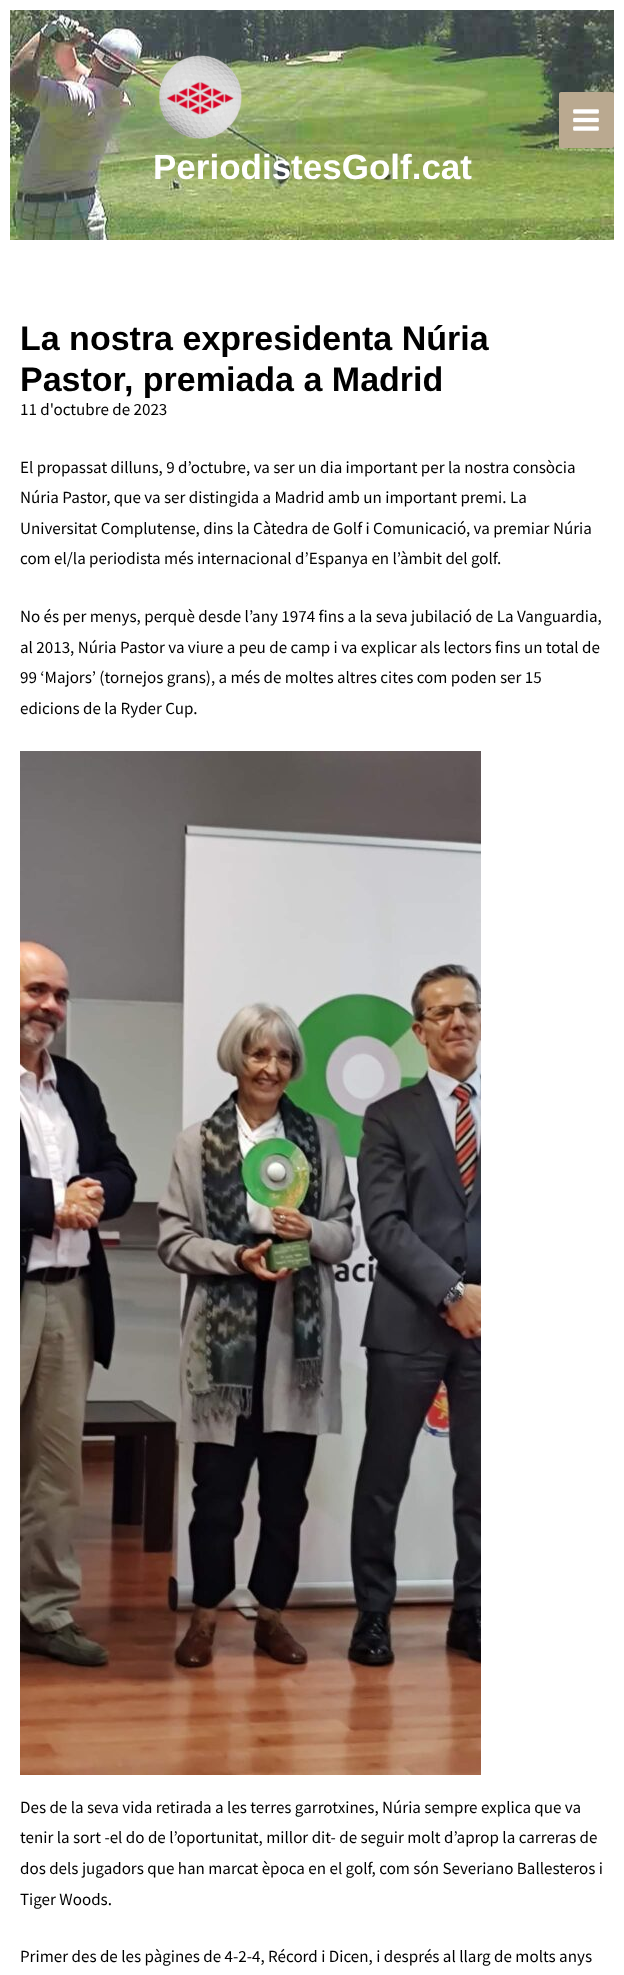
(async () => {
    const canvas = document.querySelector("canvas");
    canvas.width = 624;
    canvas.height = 1975;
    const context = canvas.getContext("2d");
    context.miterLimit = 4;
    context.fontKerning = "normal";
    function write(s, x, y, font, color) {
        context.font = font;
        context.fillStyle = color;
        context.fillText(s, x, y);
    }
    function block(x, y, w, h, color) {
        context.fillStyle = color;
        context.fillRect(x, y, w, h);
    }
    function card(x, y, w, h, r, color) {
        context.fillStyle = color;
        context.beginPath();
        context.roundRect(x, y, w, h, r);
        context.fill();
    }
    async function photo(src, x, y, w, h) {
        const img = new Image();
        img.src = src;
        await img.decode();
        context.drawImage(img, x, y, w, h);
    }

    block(0, 0, 624, 1975, "rgb(255, 255, 255)");
    await photo("media/1.png", 10, 10, 604, 230);
    card(559, 92, 55, 56, 2, "rgb(186, 169, 144)");
    await photo("media/2.png", 573, 109, 26, 22);
    await photo("media/3.png", 158, 55, 84, 84);
    write("PeriodistesGolf.cat", 153, 179, "bold 35px Liberation Sans", "rgb(255, 255, 255)");
    write("La nostra expresidenta Núria", 20, 350, "bold 34px Liberation Sans", "rgb(0, 0, 0)");
    write("Pastor, premiada a Madrid", 20, 391, "bold 34px Liberation Sans", "rgb(0, 0, 0)");
    write("11 d'octubre de 2023", 20, 415, "17px Source Sans Pro", "rgb(0, 0, 0)");
    write("El propassat dilluns, 9 d’octubre, va ser un dia important per la nostra consòcia", 20, 473, "17px Source Sans Pro", "rgb(0, 0, 0)");
    write("Núria Pastor, que va ser distingida a Madrid amb un important premi. La", 20, 503, "17px Source Sans Pro", "rgb(0, 0, 0)");
    write("Universitat Complutense, dins la Càtedra de Golf i Comunicació, va premiar Núria", 20, 534, "17px Source Sans Pro", "rgb(0, 0, 0)");
    write("com el/la periodista més internacional d’Espanya en l’àmbit del golf.", 20, 564, "17px Source Sans Pro", "rgb(0, 0, 0)");
    write("No és per menys, perquè desde l’any 1974 fins a la seva jubilació de La Vanguardia,", 20, 622, "17px Source Sans Pro", "rgb(0, 0, 0)");
    write("al 2013, Núria Pastor va viure a peu de camp i va explicar als lectors fins un total de", 20, 653, "17px Source Sans Pro", "rgb(0, 0, 0)");
    write("99 ‘Majors’ (tornejos grans), a més de moltes altres cites com poden ser 15", 20, 683, "17px Source Sans Pro", "rgb(0, 0, 0)");
    write("edicions de la Ryder Cup.", 20, 714, "17px Source Sans Pro", "rgb(0, 0, 0)");
    await photo("media/4.png", 20, 751, 461, 1024);
    write("Des de la seva vida retirada a les terres garrotxines, Núria sempre explica que va", 20, 1813, "17px Source Sans Pro", "rgb(0, 0, 0)");
    write("tenir la sort -el do de l’oportunitat, millor dit- de seguir molt d’aprop la carreras de", 20, 1843, "17px Source Sans Pro", "rgb(0, 0, 0)");
    write("dos dels jugadors que han marcat època en el golf, com són Severiano Ballesteros i", 20, 1874, "17px Source Sans Pro", "rgb(0, 0, 0)");
    write("Tiger Woods.", 20, 1905, "17px Source Sans Pro", "rgb(0, 0, 0)");
    write("Primer des de les pàgines de 4-2-4, Récord i Dicen, i després al llarg de molts anys", 20, 1962, "17px Source Sans Pro", "rgb(0, 0, 0)");
})();
